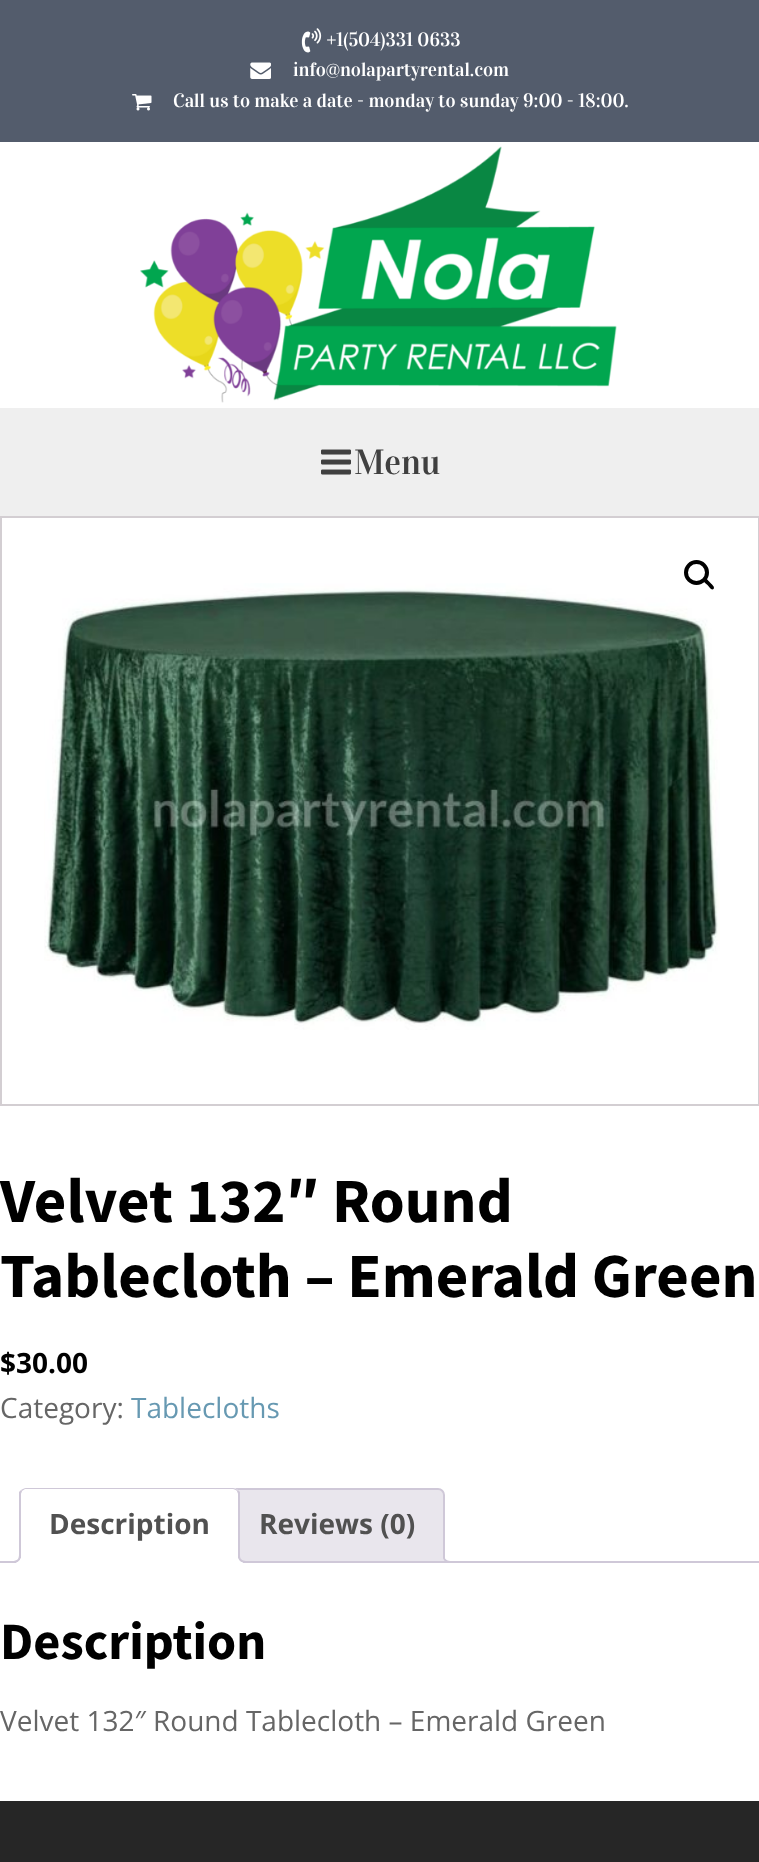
(async () => {
    const canvas = document.querySelector("canvas");
    canvas.width = 759;
    canvas.height = 1862;
    const context = canvas.getContext("2d");
    context.miterLimit = 4;
    context.fontKerning = "normal";
    function write(s, x, y, font, color) {
        context.font = font;
        context.fillStyle = color;
        context.fillText(s, x, y);
    }
    function block(x, y, w, h, color) {
        context.fillStyle = color;
        context.fillRect(x, y, w, h);
    }
    async function photo(src, x, y, w, h) {
        const img = new Image();
        img.src = src;
        await img.decode();
        context.drawImage(img, x, y, w, h);
    }

    block(0, 0, 759, 1862, "rgb(255, 255, 255)");
    block(0, 0, 759, 142, "rgb(83, 92, 108)");
    await photo("media/1.png", 301, 28, 21, 25);
    write("+1(504)331 0633", 326, 46, "19.25px Vidaloka", "rgb(255, 255, 255)");
    await photo("media/2.png", 250, 62, 21, 17);
    write("info@nolapartyrental.com", 293, 76, "19.25px Vidaloka", "rgb(255, 255, 255)");
    await photo("media/3.png", 132, 94, 20, 17);
    write("Call us to make a date - monday to sunday 9:00 - 18:00.", 173, 107, "19.25px Vidaloka", "rgb(255, 255, 255)");
    await photo("media/4.png", 140, 146, 477, 257);
    block(0, 408, 759, 108, "rgb(239, 239, 239)");
    await photo("media/5.png", 321, 449, 30, 26);
    write("Menu", 354, 474, "35px Vidaloka", "rgb(64, 64, 64)");
    context.strokeStyle = "rgb(211, 206, 210)";
    context.lineWidth = 2;
    context.strokeRect(1, 517, 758, 588);
    await photo("media/6.png", 44, 583, 676, 447);
    context.beginPath();
    context.arc(696.5, 572.5, 10.5, 0, Math.PI * 2);
    context.strokeStyle = "rgb(0, 0, 0)";
    context.lineWidth = 4;
    context.stroke();
    context.fillStyle = "rgb(0, 0, 0)";
    context.beginPath();
    context.moveTo(704, 579);
    context.bezierCurveTo(706, 577, 709, 581.5, 710, 582.5);
    context.bezierCurveTo(711, 583.5, 715.5, 587, 713.5, 589);
    context.bezierCurveTo(711.5, 591, 708.5, 586, 707.5, 585);
    context.bezierCurveTo(706.5, 584, 702, 581, 704, 579);
    context.closePath();
    context.fill();
    write("Velvet 132″ Round", 0, 1222, "bold 63px Source Sans Pro", "rgb(0, 0, 0)");
    write("Tablecloth – Emerald Green", 0, 1297, "bold 63px Source Sans Pro", "rgb(0, 0, 0)");
    write("$30.00", 0, 1373, "bold 28px Open Sans", "rgb(0, 0, 0)");
    write("Category:", 0, 1418, "28px Open Sans", "rgb(102, 102, 102)");
    write("Tablecloths", 131, 1418, "28px Open Sans", "rgb(103, 153, 178)");
    context.fillStyle = "rgb(233, 230, 237)";
    context.beginPath();
    context.roundRect(230, 1489, 214, 73, [6, 6, 0, 0]);
    context.fill();
    context.strokeStyle = "rgb(207, 200, 216)";
    context.lineWidth = 2;
    context.stroke();
    context.save();
    context.beginPath();
    context.rect(0, 1488, 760, 75);
    context.clip();
    context.beginPath();
    context.moveTo(439, 1558);
    context.bezierCurveTo(439, 1564, 442.5, 1566, 448, 1566);
    context.lineTo(448, 1562.5);
    context.bezierCurveTo(445.5, 1562, 444, 1560, 443, 1558);
    context.closePath();
    context.fill();
    context.restore();
    context.fillStyle = "rgb(207, 200, 216)";
    context.beginPath();
    context.moveTo(443, 1554);
    context.lineTo(451.5, 1554);
    context.lineTo(451.5, 1563);
    context.bezierCurveTo(447, 1563, 443, 1561, 443, 1556);
    context.closePath();
    context.moveTo(444.5, 1554);
    context.lineTo(451.5, 1554);
    context.lineTo(451.5, 1561);
    context.bezierCurveTo(448, 1561, 444.5, 1560, 444.5, 1556);
    context.closePath();
    context.fill("evenodd");
    block(0, 1561, 759, 2, "rgb(207, 200, 216)");
    context.fillStyle = "rgb(255, 255, 255)";
    context.beginPath();
    context.roundRect(19, 1488, 221, 75, [7, 7, 0, 0]);
    context.fill();
    context.fillStyle = "rgb(207, 200, 216)";
    context.beginPath();
    context.moveTo(26, 1488);
    context.bezierCurveTo(24, 1488, 23, 1489, 21, 1490);
    context.lineTo(22, 1491);
    context.lineTo(25, 1489);
    context.lineTo(233, 1489);
    context.bezierCurveTo(234, 1489, 236, 1490, 237, 1491);
    context.lineTo(238, 1490);
    context.bezierCurveTo(236, 1489, 235, 1488, 233, 1488);
    context.closePath();
    context.fill();
    context.beginPath();
    context.moveTo(238, 1490);
    context.lineTo(240, 1492);
    context.lineTo(240, 1563);
    context.lineTo(238, 1561);
    context.lineTo(238, 1494);
    context.bezierCurveTo(238, 1493, 237, 1492, 237, 1491);
    context.closePath();
    context.fill();
    context.fillStyle = "rgb(255, 255, 255)";
    context.beginPath();
    context.moveTo(240, 1563);
    context.lineTo(238, 1561);
    context.lineTo(21, 1561);
    context.lineTo(19, 1563);
    context.closePath();
    context.fill();
    context.fillStyle = "rgb(207, 200, 216)";
    context.beginPath();
    context.moveTo(19, 1563);
    context.lineTo(21, 1561);
    context.lineTo(21, 1494);
    context.bezierCurveTo(21, 1493, 22, 1492, 22, 1491);
    context.lineTo(21, 1490);
    context.lineTo(19, 1492);
    context.closePath();
    context.fill();
    write("Description", 49, 1534, "bold 28px Open Sans", "rgb(81, 81, 81)");
    context.save();
    context.beginPath();
    context.rect(0, 1488, 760, 75);
    context.clip();
    context.fillStyle = "rgb(255, 255, 255)";
    context.beginPath();
    context.moveTo(16, 1562.5);
    context.lineTo(16, 1566);
    context.bezierCurveTo(21.5, 1566, 25, 1564, 25, 1558);
    context.lineTo(20.5, 1558);
    context.bezierCurveTo(20, 1560, 18, 1562, 16, 1562.5);
    context.closePath();
    context.fill();
    context.restore();
    context.fillStyle = "rgb(207, 200, 216)";
    context.beginPath();
    context.moveTo(12, 1554);
    context.lineTo(21, 1554);
    context.bezierCurveTo(21, 1560, 18.5, 1563, 12, 1563);
    context.closePath();
    context.moveTo(12, 1554);
    context.lineTo(19, 1554);
    context.bezierCurveTo(19, 1559, 17.5, 1561, 12, 1561);
    context.closePath();
    context.fill("evenodd");
    context.save();
    context.beginPath();
    context.rect(0, 1488, 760, 75);
    context.clip();
    context.fillStyle = "rgb(255, 255, 255)";
    context.beginPath();
    context.moveTo(235, 1558);
    context.bezierCurveTo(235, 1563, 238, 1566, 243, 1566);
    context.lineTo(243, 1562.5);
    context.bezierCurveTo(241, 1562, 239, 1560, 238.5, 1558);
    context.closePath();
    context.fill();
    context.restore();
    context.beginPath();
    context.moveTo(238, 1554);
    context.lineTo(247, 1554);
    context.lineTo(247, 1563);
    context.bezierCurveTo(242.5, 1563, 238, 1561, 238, 1556);
    context.closePath();
    context.moveTo(240, 1554);
    context.lineTo(247, 1554);
    context.lineTo(247, 1561);
    context.bezierCurveTo(243.5, 1561, 240, 1560, 240, 1556);
    context.closePath();
    context.fill("evenodd");
    write("Reviews (0)", 259, 1534, "bold 28px Open Sans", "rgb(81, 81, 81)");
    write("Description", 0, 1659, "bold 52.5px Source Sans Pro", "rgb(0, 0, 0)");
    write("Velvet 132″ Round Tablecloth – Emerald Green", 0, 1731, "28px Open Sans", "rgb(102, 102, 102)");
    block(0, 1801, 759, 61, "rgb(38, 38, 38)");
})();
